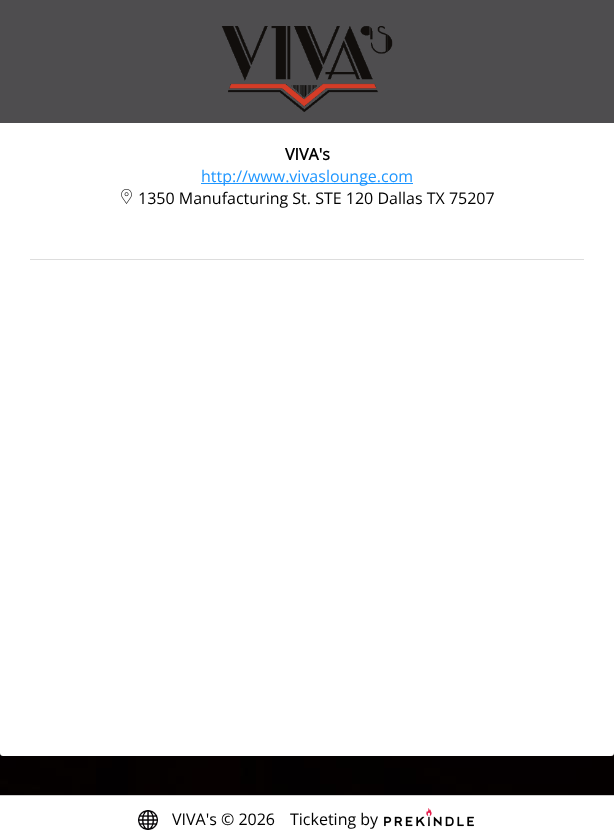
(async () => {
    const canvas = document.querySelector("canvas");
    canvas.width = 614;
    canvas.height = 840;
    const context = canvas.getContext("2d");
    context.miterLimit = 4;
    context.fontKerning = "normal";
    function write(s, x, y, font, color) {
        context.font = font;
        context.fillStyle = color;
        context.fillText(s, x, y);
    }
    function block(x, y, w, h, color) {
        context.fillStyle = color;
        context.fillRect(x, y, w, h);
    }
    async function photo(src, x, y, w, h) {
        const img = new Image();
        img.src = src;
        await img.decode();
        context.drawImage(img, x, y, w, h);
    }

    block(0, 0, 614, 840, "rgb(255, 255, 255)");
    await photo("media/1.png", 0, 753, 614, 42);
    context.beginPath();
    context.roundRect(0, 0, 614, 756, [0, 0, 3, 3]);
    context.fill();
    await photo("media/2.png", 0, 0, 614, 123);
    write("VIVA's", 285, 160, "bold 16px Open Sans", "rgb(0, 0, 0)");
    block(201, 183, 212, 1, "rgb(30, 150, 255)");
    write("http://www.vivaslounge.com", 201, 182, "16px Open Sans", "rgb(30, 150, 255)");
    await photo("media/3.png", 121, 189, 11, 15);
    write("1350 Manufacturing St. STE 120 Dallas TX 75207", 138, 204, "16px Open Sans", "rgb(0, 0, 0)");
    block(30, 259, 554, 1, "rgb(221, 221, 221)");
    block(0, 795, 614, 1, "rgb(204, 204, 204)");
    await photo("media/4.png", 138, 810, 20, 20);
    write("VIVA's © 2026", 172, 825, "16px Open Sans", "rgb(0, 0, 0)");
    write("Ticketing by", 290, 825, "16px Open Sans", "rgb(0, 0, 0)");
    await photo("media/5.png", 384, 808, 90, 19);
})();
